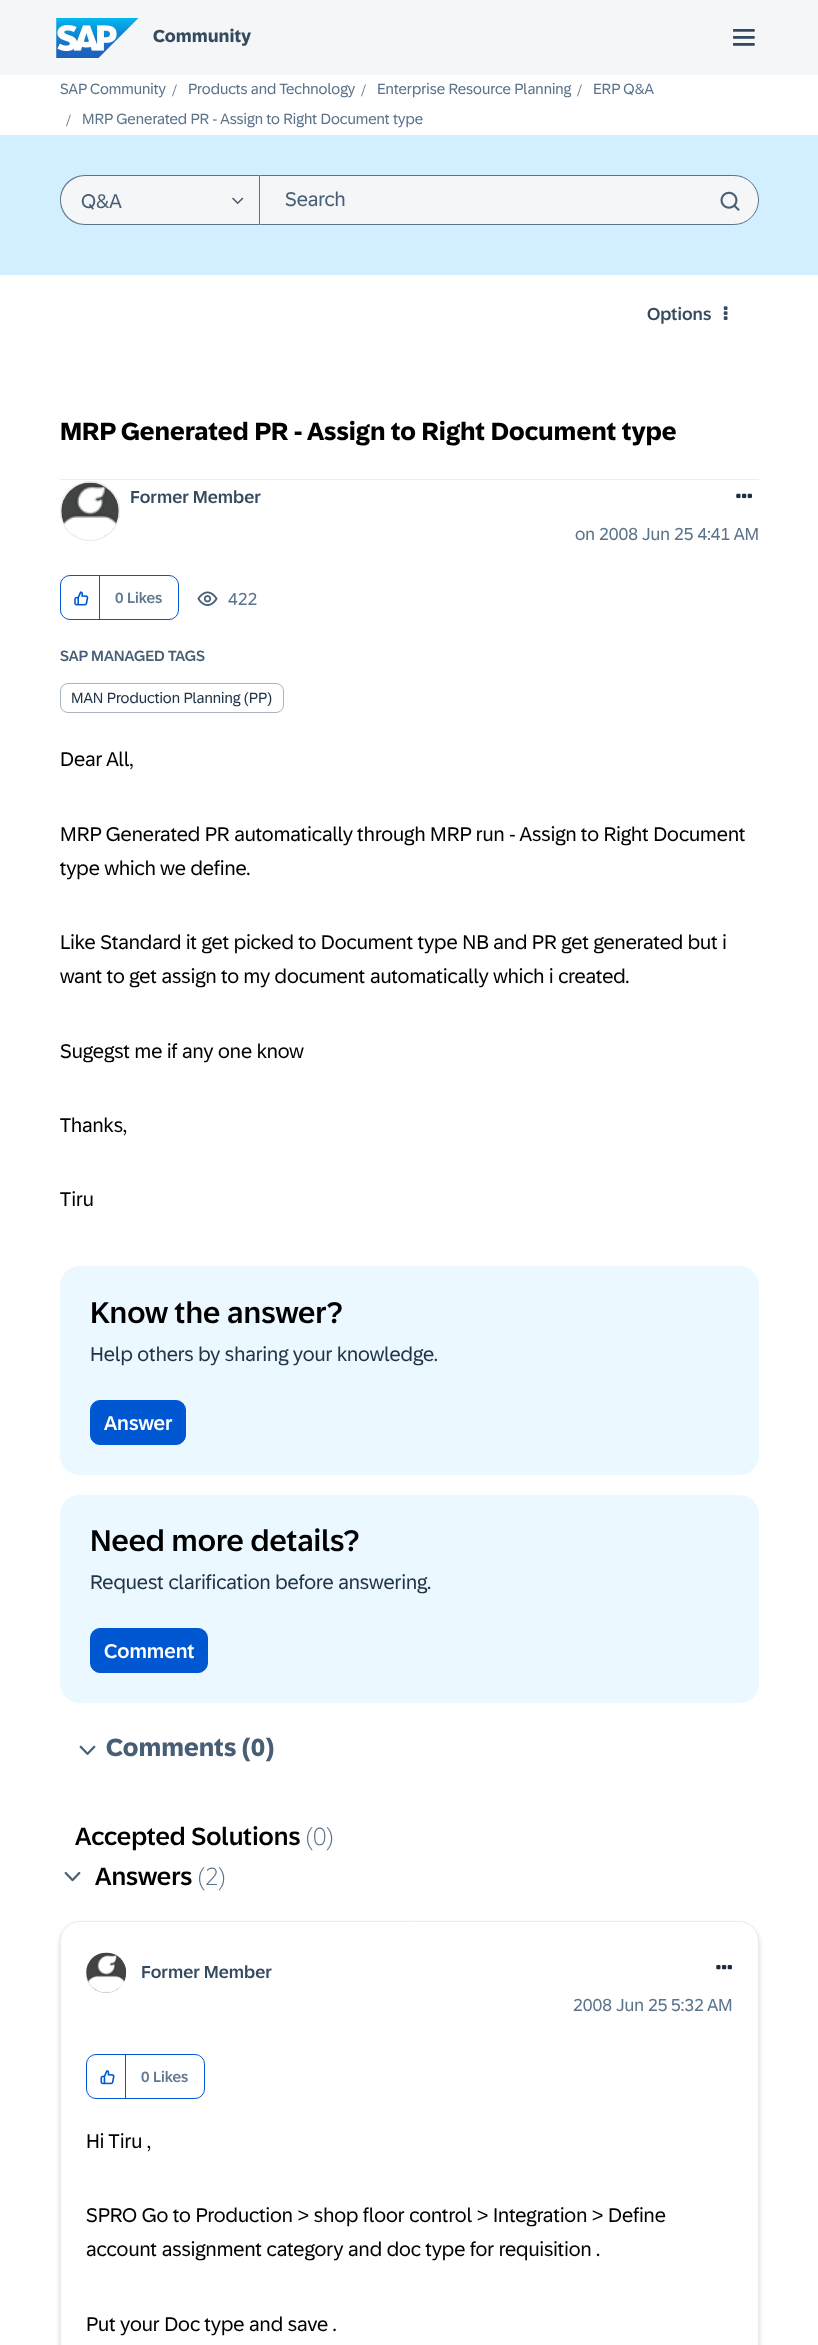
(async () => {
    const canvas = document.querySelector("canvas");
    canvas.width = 818;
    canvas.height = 2345;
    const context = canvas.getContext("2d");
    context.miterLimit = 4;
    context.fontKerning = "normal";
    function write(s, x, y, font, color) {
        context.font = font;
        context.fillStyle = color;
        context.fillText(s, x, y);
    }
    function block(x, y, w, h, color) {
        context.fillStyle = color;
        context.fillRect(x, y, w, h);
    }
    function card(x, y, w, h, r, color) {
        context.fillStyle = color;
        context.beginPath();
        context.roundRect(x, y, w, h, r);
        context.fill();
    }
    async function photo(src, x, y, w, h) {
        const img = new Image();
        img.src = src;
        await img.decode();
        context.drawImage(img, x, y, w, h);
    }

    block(0, 0, 818, 2345, "rgb(255, 255, 255)");
    block(0, 0, 818, 75, "rgb(245, 246, 247)");
    await photo("media/1.png", 56, 18, 83, 40);
    write("Community", 153, 42, "bold 17.5px '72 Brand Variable'", "rgb(53, 74, 95)");
    await photo("media/2.png", 733, 29, 22, 17);
    write("SAP Community", 60, 94, "15px '72 Brand Variable'", "rgb(91, 115, 139)");
    write("/", 172, 96, "17.5px Liberation Serif", "rgb(91, 115, 139)");
    write("Products and Technology", 188, 94, "15px '72 Brand Variable'", "rgb(91, 115, 139)");
    write("/", 361, 96, "17.5px Liberation Serif", "rgb(91, 115, 139)");
    write("Enterprise Resource Planning", 377, 94, "15px '72 Brand Variable'", "rgb(91, 115, 139)");
    write("/", 577, 96, "17.5px Liberation Serif", "rgb(91, 115, 139)");
    write("ERP Q&A", 593, 94, "15px '72 Brand Variable'", "rgb(91, 115, 139)");
    write("/", 66, 126, "17.5px Liberation Serif", "rgb(91, 115, 139)");
    write("MRP Generated PR - Assign to Right Document type", 82, 124, "15px '72 Brand Variable'", "rgb(91, 115, 139)");
    block(0, 135, 818, 140, "rgb(209, 239, 255)");
    context.fillStyle = "rgb(245, 246, 247)";
    context.beginPath();
    context.roundRect(60, 175, 199, 50, [25, 0, 0, 25]);
    context.fill();
    context.fillStyle = "rgb(91, 115, 139)";
    context.beginPath();
    context.moveTo(85, 175);
    context.lineTo(259, 175);
    context.lineTo(259, 225);
    context.lineTo(85, 225);
    context.bezierCurveTo(71, 225, 60, 214, 60, 200);
    context.bezierCurveTo(60, 186, 71, 175, 85, 175);
    context.closePath();
    context.moveTo(85, 176);
    context.lineTo(259, 176);
    context.lineTo(259, 224);
    context.lineTo(85, 224);
    context.bezierCurveTo(72, 224, 61, 213, 61, 200);
    context.bezierCurveTo(61, 187, 72, 176, 85, 176);
    context.closePath();
    context.fill("evenodd");
    write("Q&A", 81, 208, "20px '72 Brand Variable'", "rgb(71, 94, 117)");
    await photo("media/3.png", 232, 197, 12, 8);
    context.fillStyle = "rgb(245, 246, 247)";
    context.beginPath();
    context.roundRect(259.5, 175.5, 499, 49, [0, 24.5, 24.5, 0]);
    context.fill();
    context.strokeStyle = "rgb(91, 115, 139)";
    context.stroke();
    write("Search", 285, 206, "20px '72 Brand Variable'", "rgb(71, 94, 117)");
    await photo("media/4.png", 720, 191, 20, 20);
    write("Options", 647, 320, "500 17.5px '72 Brand Variable'", "rgb(53, 74, 95)");
    await photo("media/5.png", 723, 306, 5, 14);
    block(60, 479, 699, 1, "rgb(234, 236, 238)");
    write("MRP Generated PR - Assign to Right Document type", 60, 440, "bold 25px '72 Brand Variable'", "rgb(0, 0, 0)");
    context.save();
    context.beginPath();
    context.moveTo(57, 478);
    context.lineTo(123, 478);
    context.lineTo(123, 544);
    context.lineTo(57, 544);
    context.closePath();
    context.moveTo(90, 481);
    context.bezierCurveTo(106.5, 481, 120, 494.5, 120, 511);
    context.bezierCurveTo(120, 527.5, 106.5, 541, 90, 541);
    context.bezierCurveTo(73.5, 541, 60, 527.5, 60, 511);
    context.bezierCurveTo(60, 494.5, 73.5, 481, 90, 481);
    context.closePath();
    context.clip("evenodd");
    context.fillStyle = "rgb(196, 196, 196)";
    context.filter = "blur(0.5px)";
    context.beginPath();
    context.roundRect(60, 481, 60, 60, 30);
    context.fill();
    context.filter = "none";
    context.restore();
    context.beginPath();
    context.arc(90, 511, 29.5, 0, Math.PI * 2);
    context.strokeStyle = "rgb(234, 236, 238)";
    context.stroke();
    await photo("media/6.png", 61, 482, 58, 54);
    write("Former Member", 130, 503, "500 17.5px '72 Brand Variable'", "rgb(53, 74, 95)");
    await photo("media/7.png", 736, 493, 16, 6);
    write("on 2008 Jun 25 4:41 AM", 575, 540, "17.5px '72 Brand Variable'", "rgb(91, 115, 139)");
    context.beginPath();
    context.roundRect(60.5, 575.5, 118, 44, 9.5);
    context.strokeStyle = "rgb(0, 87, 210)";
    context.stroke();
    block(99, 576, 1, 44, "rgb(0, 87, 210)");
    await photo("media/8.png", 74, 591, 15, 15);
    write("0 Likes", 115, 603, "500 15px '72 Brand Variable'", "rgb(97, 121, 144)");
    await photo("media/9.png", 197, 591, 21, 15);
    write("422", 228, 605, "17.5px '72 Brand Variable'", "rgb(91, 115, 139)");
    write("SAP MANAGED TAGS", 60, 661, "500 15px '72 Brand Variable'", "rgb(71, 94, 117)");
    context.beginPath();
    context.roundRect(60.5, 683.5, 223, 29, 7.5);
    context.strokeStyle = "rgb(169, 180, 190)";
    context.stroke();
    write("MAN Production Planning (PP)", 71, 703, "15px '72 Brand Variable'", "rgb(34, 53, 72)");
    write("Dear All,", 60, 766, "20px '72 Brand Variable'", "rgb(0, 0, 0)");
    write("MRP Generated PR automatically through MRP run - Assign to Right Document", 60, 841, "20px '72 Brand Variable'", "rgb(0, 0, 0)");
    write("type which we define.", 60, 875, "20px '72 Brand Variable'", "rgb(0, 0, 0)");
    write("Like Standard it get picked to Document type NB and PR get generated but i", 60, 949, "20px '72 Brand Variable'", "rgb(0, 0, 0)");
    write("want to get assign to my document automatically which i created.", 60, 983, "20px '72 Brand Variable'", "rgb(0, 0, 0)");
    write("Sugegst me if any one know", 60, 1058, "20px '72 Brand Variable'", "rgb(0, 0, 0)");
    write("Thanks,", 60, 1132, "20px '72 Brand Variable'", "rgb(0, 0, 0)");
    write("Tiru", 60, 1206, "20px '72 Brand Variable'", "rgb(0, 0, 0)");
    card(60, 1266, 699, 209, 20, "rgb(235, 248, 255)");
    write("Know the answer?", 90, 1323, "500 30px '72 Brand Variable'", "rgb(0, 0, 0)");
    write("Help others by sharing your knowledge.", 90, 1361, "20px '72 Brand Variable'", "rgb(34, 53, 72)");
    context.fillStyle = "rgb(0, 87, 210)";
    context.beginPath();
    context.roundRect(90.5, 1400.5, 95, 44, 9.5);
    context.fill();
    context.strokeStyle = "rgb(0, 87, 210)";
    context.stroke();
    write("Answer", 104, 1430, "500 20px '72 Brand Variable'", "rgb(255, 255, 255)");
    card(60, 1495, 699, 208, 20, "rgb(235, 248, 255)");
    write("Need more details?", 90, 1551, "500 30px '72 Brand Variable'", "rgb(0, 0, 0)");
    write("Request clarification before answering.", 90, 1589, "20px '72 Brand Variable'", "rgb(34, 53, 72)");
    context.fillStyle = "rgb(0, 87, 210)";
    context.beginPath();
    context.roundRect(90.5, 1628.5, 117, 44, 9.5);
    context.fill();
    context.stroke();
    write("Comment", 104, 1658, "500 20px '72 Brand Variable'", "rgb(255, 255, 255)");
    await photo("media/10.png", 79, 1745, 17, 10);
    write("Comments (0)", 106, 1756, "bold 25px '72 Brand Variable'", "rgb(71, 94, 117)");
    write("Accepted Solutions", 75, 1845, "500 25px '72 Brand Variable'", "rgb(0, 0, 0)");
    write("(0)", 306, 1845, "300 25px '72 Brand Variable'", "rgb(91, 115, 139)");
    await photo("media/11.png", 64, 1872, 17, 10);
    write("Answers", 95, 1885, "500 25px '72 Brand Variable'", "rgb(0, 0, 0)");
    write("(2)", 198, 1885, "300 25px '72 Brand Variable'", "rgb(91, 115, 139)");
    context.fillStyle = "rgba(34, 54, 73, 0.2)";
    context.filter = "blur(2.5px)";
    context.beginPath();
    context.roundRect(60, 1924, 699, 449, 20);
    context.fill();
    context.filter = "none";
    context.fillStyle = "rgb(255, 255, 255)";
    context.beginPath();
    context.roundRect(60.5, 1921.5, 698, 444, 19.5);
    context.fill();
    context.strokeStyle = "rgb(234, 236, 238)";
    context.stroke();
    context.fillStyle = "rgb(196, 196, 196)";
    context.filter = "blur(0.5px)";
    context.beginPath();
    context.roundRect(86, 1953, 40, 40, 20);
    context.fill();
    context.filter = "none";
    await photo("media/12.png", 86, 1952, 41, 41);
    write("Former Member", 141, 1978, "500 17.5px '72 Brand Variable'", "rgb(53, 74, 95)");
    await photo("media/13.png", 716, 1965, 16, 5);
    write("2008 Jun 25", 573, 2011, "17.5px '72 Brand Variable'", "rgb(91, 115, 139)");
    write("5:32 AM", 671, 2011, "17.5px '72 Brand Variable'", "rgb(91, 115, 139)");
    context.beginPath();
    context.roundRect(86.5, 2054.5, 118, 44, 9.5);
    context.strokeStyle = "rgb(0, 87, 210)";
    context.stroke();
    block(125, 2055, 1, 44, "rgb(0, 87, 210)");
    await photo("media/14.png", 100, 2070, 15, 15);
    write("0 Likes", 141, 2082, "500 15px '72 Brand Variable'", "rgb(97, 121, 144)");
    write("Hi Tiru ,", 86, 2148, "20px '72 Brand Variable'", "rgb(0, 0, 0)");
    write("SPRO Go to Production > shop floor control > Integration > Define", 86, 2222, "20px '72 Brand Variable'", "rgb(0, 0, 0)");
    write("account assignment category and doc type for requisition .", 86, 2256, "20px '72 Brand Variable'", "rgb(0, 0, 0)");
    write("Put your Doc type and save .", 86, 2331, "20px '72 Brand Variable'", "rgb(0, 0, 0)");
})();
